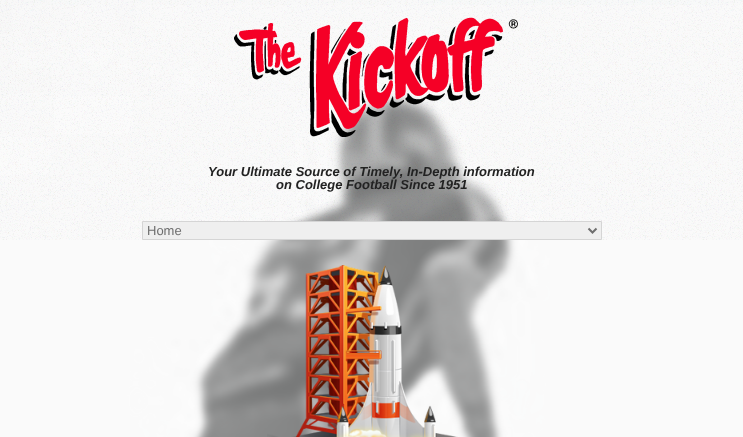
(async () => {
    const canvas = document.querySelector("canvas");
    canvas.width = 743;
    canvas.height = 437;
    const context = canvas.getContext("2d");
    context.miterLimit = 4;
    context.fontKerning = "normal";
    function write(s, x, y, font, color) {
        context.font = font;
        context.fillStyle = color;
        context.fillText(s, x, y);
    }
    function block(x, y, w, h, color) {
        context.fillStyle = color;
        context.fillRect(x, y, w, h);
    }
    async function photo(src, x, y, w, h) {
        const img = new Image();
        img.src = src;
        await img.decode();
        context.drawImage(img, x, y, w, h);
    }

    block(0, 0, 743, 437, "rgb(255, 255, 255)");
    await photo("media/1.png", 0, 0, 743, 437);
    await photo("media/2.png", 0, 0, 743, 240);
    await photo("media/3.png", 234, 17, 284, 120);
    write("Your Ultimate Source of Timely, In-Depth information", 208, 176, "italic bold 13px Liberation Sans", "rgb(34, 34, 34)");
    write("on College Football Since 1951", 276, 189, "italic bold 13px Liberation Sans", "rgb(34, 34, 34)");
    context.fillStyle = "rgb(239, 239, 239)";
    context.beginPath();
    context.rect(142.5, 221.5, 459, 18);
    context.fill();
    context.strokeStyle = "rgb(213, 213, 213)";
    context.stroke();
    context.beginPath();
    context.moveTo(588.5, 228.5);
    context.lineTo(592.5, 232.5);
    context.lineTo(596.5, 228.5);
    context.strokeStyle = "rgb(110, 110, 110)";
    context.lineWidth = 2;
    context.stroke();
    write("Home", 147, 235, "13px Liberation Sans", "rgb(110, 110, 110)");
    await photo("media/4.png", 267, 265, 191, 172);
})();
